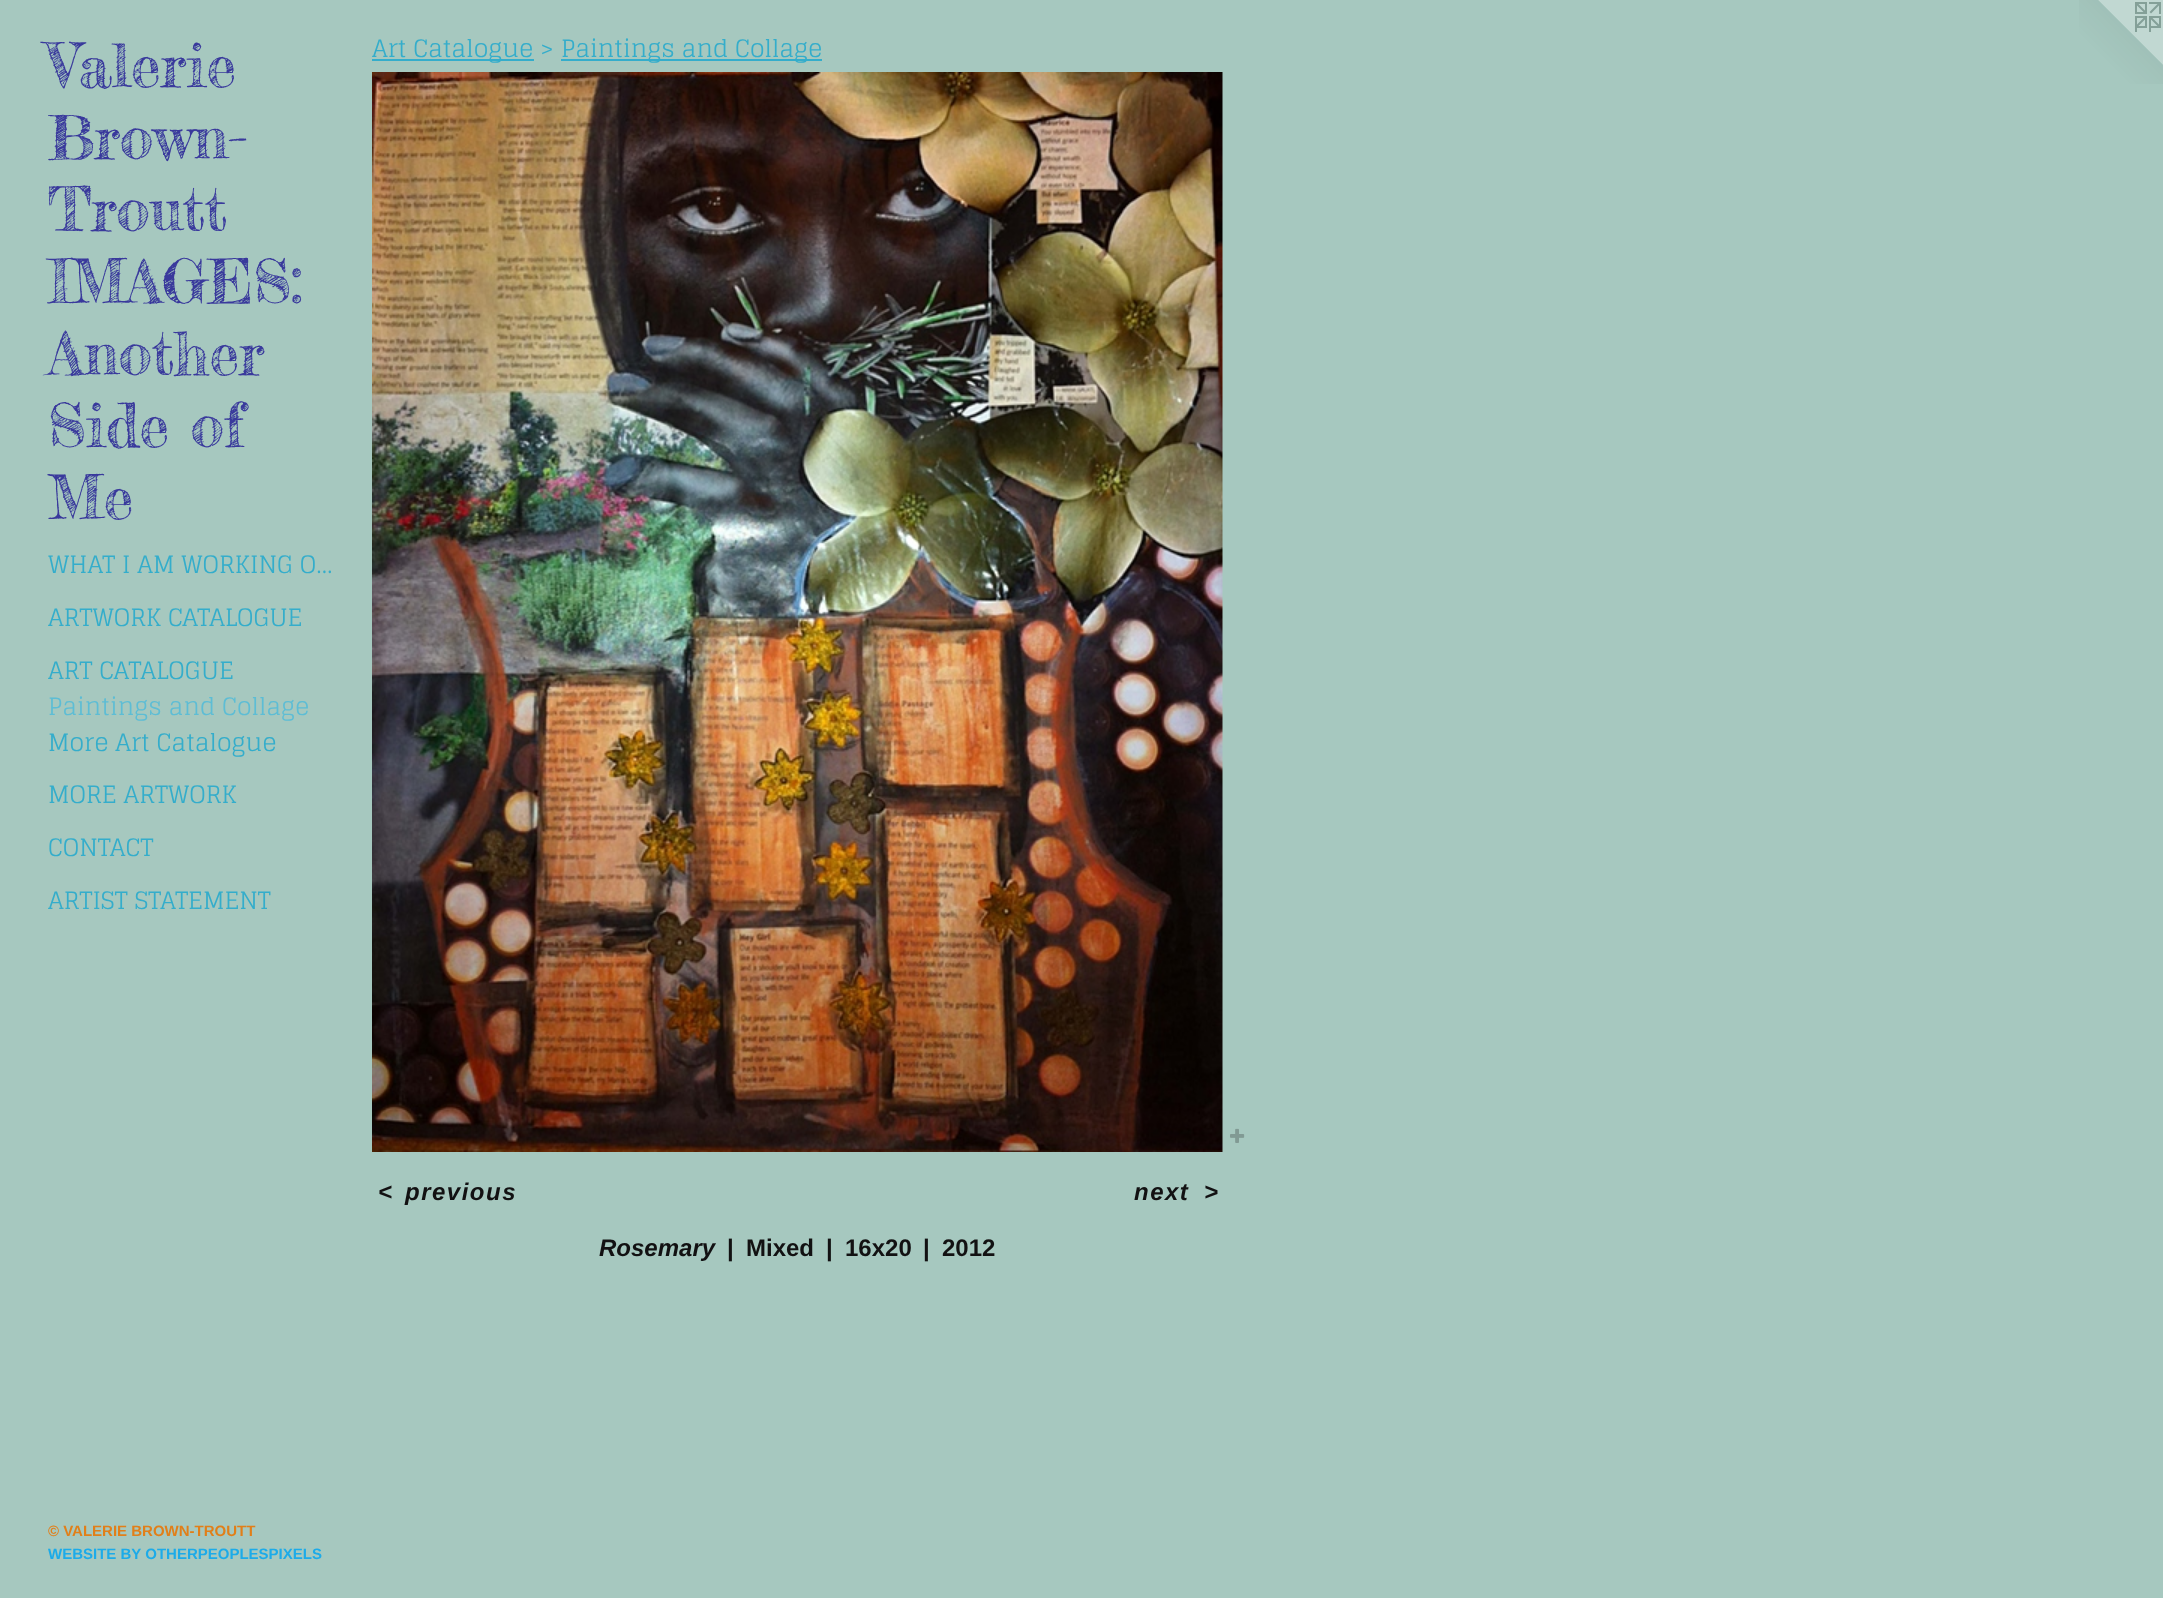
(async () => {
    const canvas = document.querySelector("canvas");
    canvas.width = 2163;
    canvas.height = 1598;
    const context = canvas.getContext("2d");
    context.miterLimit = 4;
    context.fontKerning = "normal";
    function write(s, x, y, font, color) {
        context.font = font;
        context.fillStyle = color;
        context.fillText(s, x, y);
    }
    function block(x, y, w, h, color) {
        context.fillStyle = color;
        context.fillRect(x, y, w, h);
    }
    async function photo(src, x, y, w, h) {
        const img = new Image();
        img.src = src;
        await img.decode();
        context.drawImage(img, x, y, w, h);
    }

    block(0, 0, 2163, 1598, "rgb(166, 200, 191)");
    write("Valerie", 48, 87, "60px Fredericka the Great", "rgb(57, 57, 156)");
    write("Brown-", 48, 159, "60px Fredericka the Great", "rgb(57, 57, 156)");
    write("Troutt", 48, 231, "60px Fredericka the Great", "rgb(57, 57, 156)");
    write("IMAGES:", 48, 303, "60px Fredericka the Great", "rgb(57, 57, 156)");
    write("Another", 48, 375, "60px Fredericka the Great", "rgb(57, 57, 156)");
    write("Side of", 48, 447, "60px Fredericka the Great", "rgb(57, 57, 156)");
    write("Me", 48, 519, "60px Fredericka the Great", "rgb(57, 57, 156)");
    write("WHAT I AM WORKING O…", 48, 573, "24px Glegoo", "rgb(52, 173, 203)");
    write("ARTWORK CATALOGUE", 48, 626, "24px Glegoo", "rgb(52, 173, 203)");
    write("ART CATALOGUE", 48, 679, "24px Glegoo", "rgb(52, 173, 203)");
    write("Paintings and Collage", 48, 715, "24px Glegoo", "rgb(93, 189, 213)");
    write("More Art Catalogue", 48, 751, "24px Glegoo", "rgb(52, 173, 203)");
    write("MORE ARTWORK", 48, 803, "24px Glegoo", "rgb(52, 173, 203)");
    write("CONTACT", 48, 856, "24px Glegoo", "rgb(52, 173, 203)");
    write("ARTIST STATEMENT", 48, 909, "24px Glegoo", "rgb(52, 173, 203)");
    write("© VALERIE BROWN-TROUTT", 48, 1536, "bold 15px Liberation Sans", "rgb(225, 127, 25)");
    write("WEBSITE BY OTHERPEOPLESPIXELS", 48, 1559, "bold 15px Liberation Sans", "rgb(28, 171, 233)");
    block(372, 59, 162, 2, "rgb(52, 173, 203)");
    write("Art Catalogue >", 372, 57, "24px Glegoo", "rgb(52, 173, 203)");
    block(561, 59, 261, 2, "rgb(52, 173, 203)");
    write("Paintings and Collage", 561, 57, "24px Glegoo", "rgb(52, 173, 203)");
    await photo("media/1.png", 372, 72, 851, 1080);
    await photo("media/2.png", 1230, 1128, 15, 15);
    context.letterSpacing = "1.5px";
    write("<", 378, 1200, "italic bold 24px Liberation Sans", "rgb(18, 17, 18)");
    write("previous", 405, 1200, "italic bold 24px Liberation Sans", "rgb(18, 17, 18)");
    write("next", 1134, 1200, "italic bold 24px Liberation Sans", "rgb(18, 17, 18)");
    write(">", 1204, 1200, "italic bold 24px Liberation Sans", "rgb(18, 17, 18)");
    context.letterSpacing = "0px";
    write("Rosemary", 599, 1256, "italic bold 24px Liberation Sans", "rgb(18, 17, 18)");
    write("|", 727, 1256, "bold 24px Liberation Sans", "rgb(18, 17, 18)");
    write("Mixed", 746, 1256, "bold 24px Liberation Sans", "rgb(18, 17, 18)");
    write("|", 826, 1256, "bold 24px Liberation Sans", "rgb(18, 17, 18)");
    write("16x20", 845, 1256, "bold 24px Liberation Sans", "rgb(18, 17, 18)");
    write("|", 923, 1256, "bold 24px Liberation Sans", "rgb(18, 17, 18)");
    write("2012", 942, 1256, "bold 24px Liberation Sans", "rgb(18, 17, 18)");
    await photo("media/3.png", 2079, 0, 84, 84);
})();
